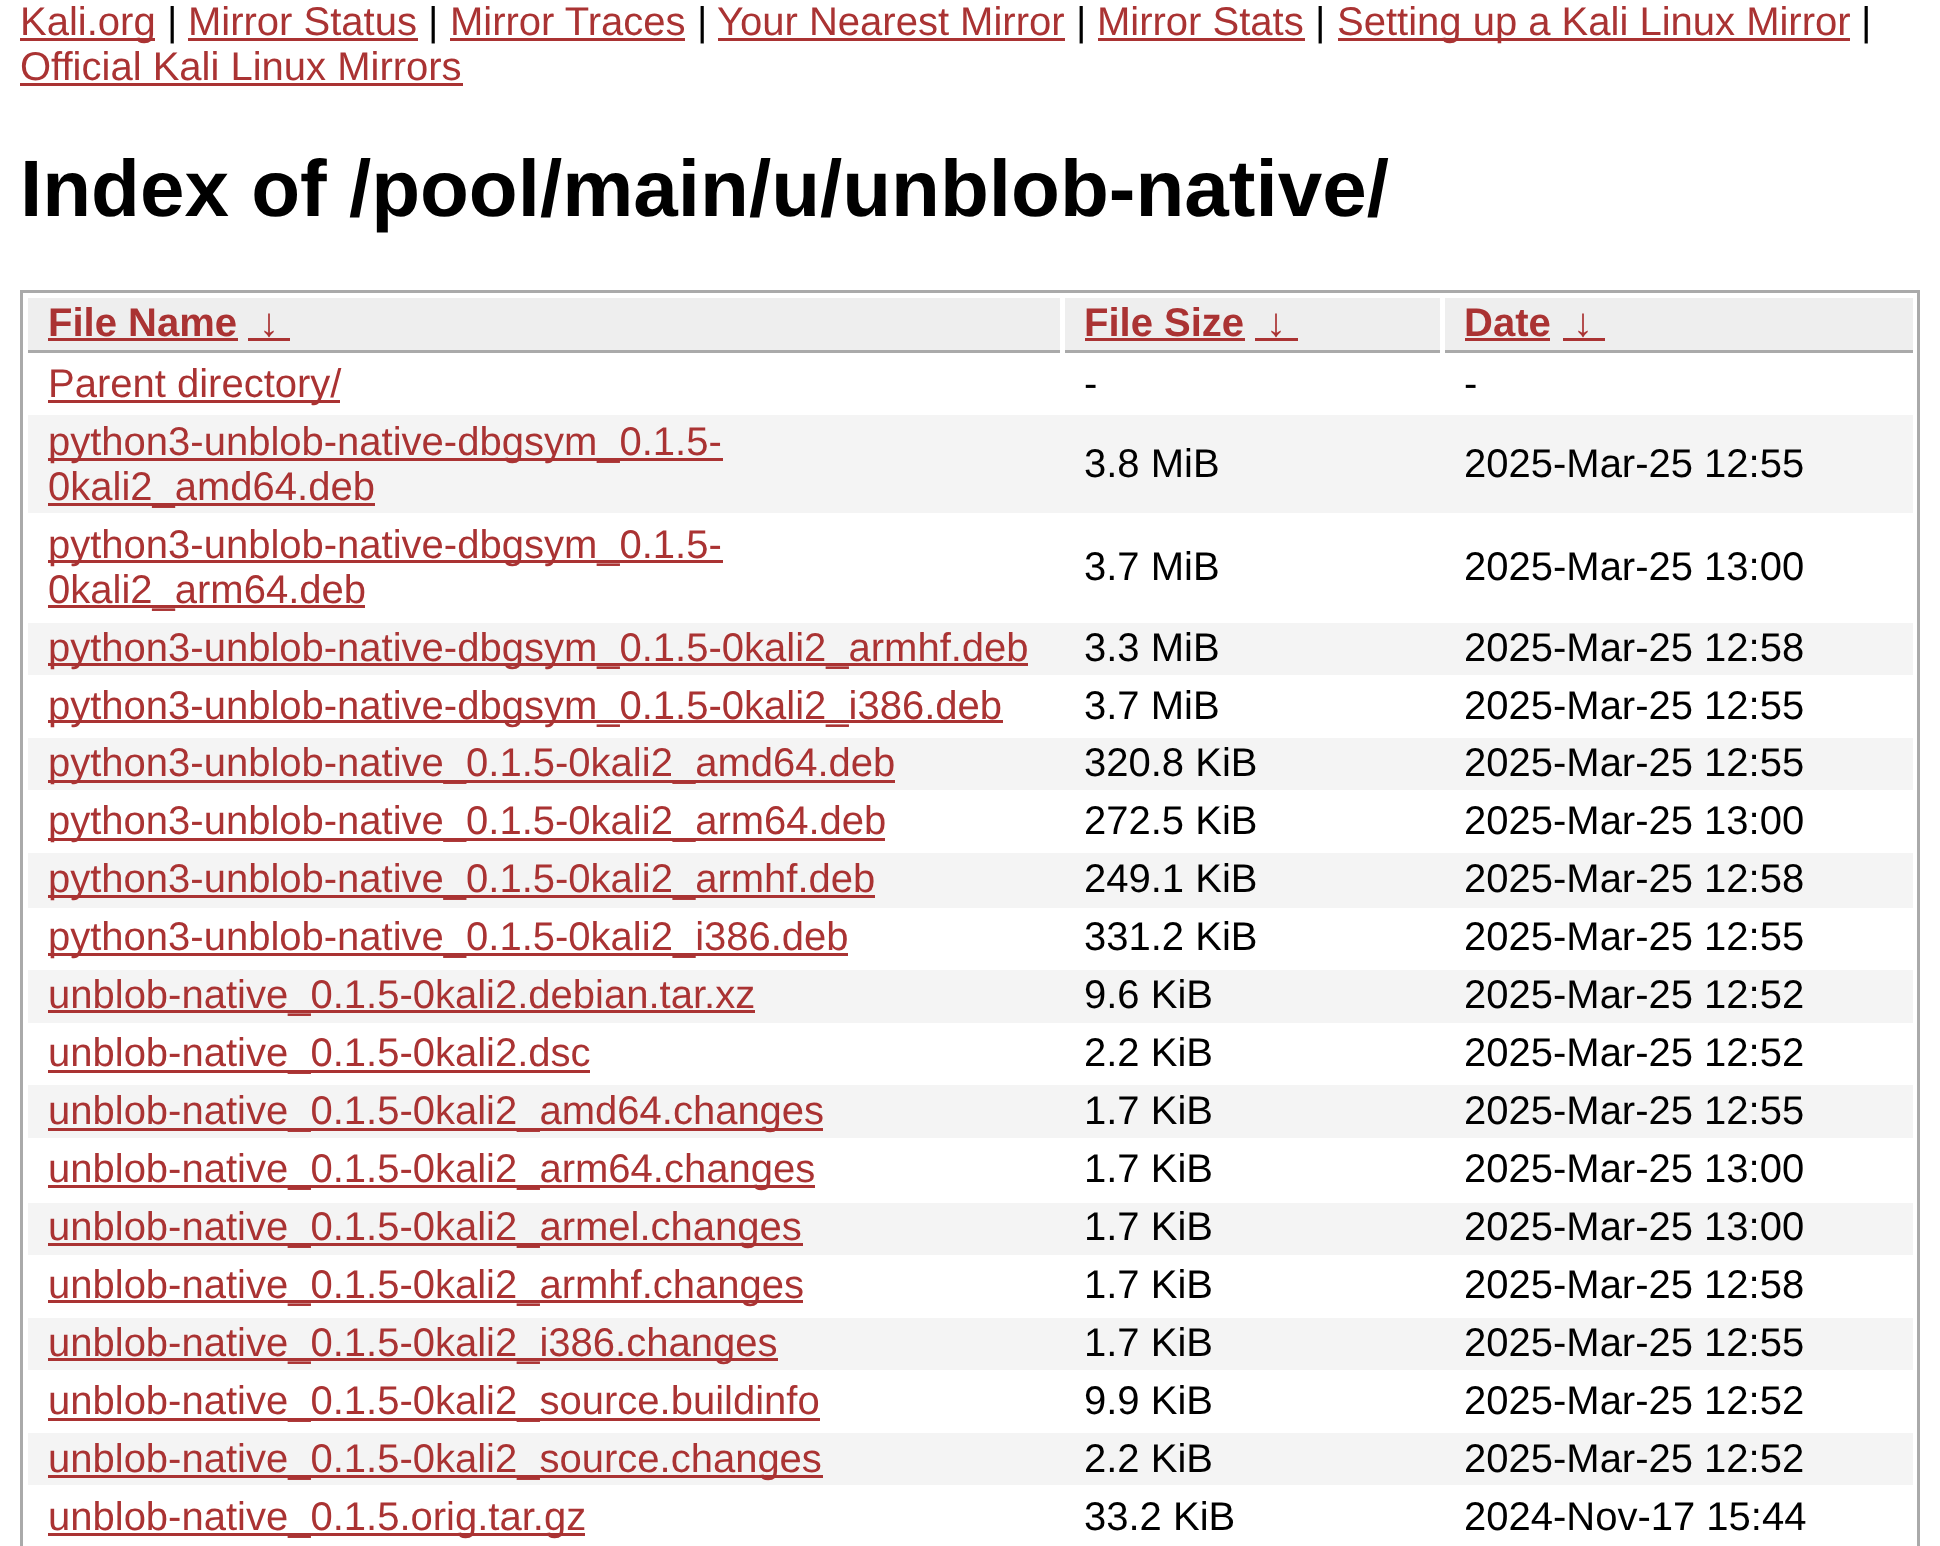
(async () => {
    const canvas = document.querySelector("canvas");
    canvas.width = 1940;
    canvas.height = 1546;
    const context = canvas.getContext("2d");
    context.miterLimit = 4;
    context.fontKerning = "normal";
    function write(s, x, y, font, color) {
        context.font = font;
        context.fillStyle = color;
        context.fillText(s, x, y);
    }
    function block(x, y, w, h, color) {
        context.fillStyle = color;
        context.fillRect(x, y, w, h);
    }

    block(0, 0, 1940, 1546, "rgb(255, 255, 255)");
    block(20, 38, 135, 3, "rgb(170, 51, 51)");
    write("Kali.org", 20, 35, "40px Liberation Sans", "rgb(170, 51, 51)");
    write("|", 167, 35, "40px Liberation Sans", "rgb(0, 0, 0)");
    write("Mirror Status", 188, 35, "40px Liberation Sans", "rgb(170, 51, 51)");
    block(188, 38, 230, 3, "rgb(170, 51, 51)");
    write("|", 428, 35, "40px Liberation Sans", "rgb(0, 0, 0)");
    write("Mirror Traces", 450, 35, "40px Liberation Sans", "rgb(170, 51, 51)");
    block(450, 38, 235, 3, "rgb(170, 51, 51)");
    write("|", 697, 35, "40px Liberation Sans", "rgb(0, 0, 0)");
    write("Your Nearest Mirror", 717, 35, "40px Liberation Sans", "rgb(170, 51, 51)");
    block(718, 38, 347, 3, "rgb(170, 51, 51)");
    write("|", 1076, 35, "40px Liberation Sans", "rgb(0, 0, 0)");
    write("Mirror Stats", 1097, 35, "40px Liberation Sans", "rgb(170, 51, 51)");
    block(1098, 38, 207, 3, "rgb(170, 51, 51)");
    write("|", 1315, 35, "40px Liberation Sans", "rgb(0, 0, 0)");
    block(1338, 38, 512, 3, "rgb(170, 51, 51)");
    write("Setting up a Kali Linux Mirror", 1337, 35, "40px Liberation Sans", "rgb(170, 51, 51)");
    write("|", 1861, 35, "40px Liberation Sans", "rgb(0, 0, 0)");
    write("Official Kali Linux Mirrors", 20, 80, "40px Liberation Sans", "rgb(170, 51, 51)");
    block(20, 83, 443, 3, "rgb(170, 51, 51)");
    write("Index of /pool/main/u/unblob-native/", 20, 216, "bold 80px Liberation Sans", "rgb(0, 0, 0)");
    context.strokeStyle = "rgb(170, 170, 170)";
    context.lineWidth = 3;
    context.strokeRect(21.5, 291.5, 1897, 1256);
    block(28, 298, 1032, 52, "rgb(238, 238, 238)");
    block(28, 350, 1032, 3, "rgb(170, 170, 170)");
    write("File Name", 48, 336, "bold 40px Liberation Sans", "rgb(170, 51, 51)");
    block(48, 338, 190, 3, "rgb(170, 51, 51)");
    write("↓", 259, 336, "bold 40px Liberation Sans", "rgb(170, 51, 51)");
    block(248, 338, 42, 3, "rgb(170, 51, 51)");
    block(1065, 298, 375, 52, "rgb(238, 238, 238)");
    block(1065, 350, 375, 3, "rgb(170, 170, 170)");
    write("File Size", 1084, 336, "bold 40px Liberation Sans", "rgb(170, 51, 51)");
    block(1085, 338, 160, 3, "rgb(170, 51, 51)");
    write("↓", 1266, 336, "bold 40px Liberation Sans", "rgb(170, 51, 51)");
    block(1255, 338, 43, 3, "rgb(170, 51, 51)");
    block(1445, 298, 468, 52, "rgb(238, 238, 238)");
    block(1445, 350, 468, 3, "rgb(170, 170, 170)");
    write("Date", 1464, 336, "bold 40px Liberation Sans", "rgb(170, 51, 51)");
    block(1465, 338, 85, 3, "rgb(170, 51, 51)");
    write("↓", 1573, 336, "bold 40px Liberation Sans", "rgb(170, 51, 51)");
    block(1563, 338, 42, 3, "rgb(170, 51, 51)");
    block(48, 400, 292, 3, "rgb(170, 51, 51)");
    write("Parent directory/", 48, 397, "40px Liberation Sans", "rgb(170, 51, 51)");
    write("-", 1084, 397, "40px Liberation Sans", "rgb(0, 0, 0)");
    write("-", 1464, 397, "40px Liberation Sans", "rgb(0, 0, 0)");
    block(28, 415, 1885, 98, "rgb(244, 244, 244)");
    block(48, 458, 675, 3, "rgb(170, 51, 51)");
    write("python3-unblob-native-dbgsym_0.1.5-", 48, 455, "40px Liberation Sans", "rgb(170, 51, 51)");
    block(48, 503, 327, 3, "rgb(170, 51, 51)");
    write("0kali2_amd64.deb", 48, 500, "40px Liberation Sans", "rgb(170, 51, 51)");
    write("3.8 MiB", 1084, 477, "40px Liberation Sans", "rgb(0, 0, 0)");
    write("2025-Mar-25 12:55", 1464, 477, "40px Liberation Sans", "rgb(0, 0, 0)");
    block(48, 560, 675, 3, "rgb(170, 51, 51)");
    write("python3-unblob-native-dbgsym_0.1.5-", 48, 558, "40px Liberation Sans", "rgb(170, 51, 51)");
    block(48, 605, 317, 3, "rgb(170, 51, 51)");
    write("0kali2_arm64.deb", 48, 603, "40px Liberation Sans", "rgb(170, 51, 51)");
    write("3.7 MiB", 1084, 580, "40px Liberation Sans", "rgb(0, 0, 0)");
    write("2025-Mar-25 13:00", 1464, 580, "40px Liberation Sans", "rgb(0, 0, 0)");
    block(28, 623, 1885, 52, "rgb(244, 244, 244)");
    block(48, 663, 980, 3, "rgb(170, 51, 51)");
    write("python3-unblob-native-dbgsym_0.1.5-0kali2_armhf.deb", 48, 661, "40px Liberation Sans", "rgb(170, 51, 51)");
    write("3.3 MiB", 1084, 661, "40px Liberation Sans", "rgb(0, 0, 0)");
    write("2025-Mar-25 12:58", 1464, 661, "40px Liberation Sans", "rgb(0, 0, 0)");
    block(48, 720, 955, 3, "rgb(170, 51, 51)");
    write("python3-unblob-native-dbgsym_0.1.5-0kali2_i386.deb", 48, 719, "40px Liberation Sans", "rgb(170, 51, 51)");
    write("3.7 MiB", 1084, 719, "40px Liberation Sans", "rgb(0, 0, 0)");
    write("2025-Mar-25 12:55", 1464, 719, "40px Liberation Sans", "rgb(0, 0, 0)");
    block(28, 738, 1885, 52, "rgb(244, 244, 244)");
    block(48, 780, 847, 3, "rgb(170, 51, 51)");
    write("python3-unblob-native_0.1.5-0kali2_amd64.deb", 48, 776, "40px Liberation Sans", "rgb(170, 51, 51)");
    write("320.8 KiB", 1084, 776, "40px Liberation Sans", "rgb(0, 0, 0)");
    write("2025-Mar-25 12:55", 1464, 776, "40px Liberation Sans", "rgb(0, 0, 0)");
    block(48, 838, 837, 3, "rgb(170, 51, 51)");
    write("python3-unblob-native_0.1.5-0kali2_arm64.deb", 48, 834, "40px Liberation Sans", "rgb(170, 51, 51)");
    write("272.5 KiB", 1084, 834, "40px Liberation Sans", "rgb(0, 0, 0)");
    write("2025-Mar-25 13:00", 1464, 834, "40px Liberation Sans", "rgb(0, 0, 0)");
    block(28, 853, 1885, 55, "rgb(244, 244, 244)");
    block(48, 895, 827, 3, "rgb(170, 51, 51)");
    write("python3-unblob-native_0.1.5-0kali2_armhf.deb", 48, 892, "40px Liberation Sans", "rgb(170, 51, 51)");
    write("249.1 KiB", 1084, 892, "40px Liberation Sans", "rgb(0, 0, 0)");
    write("2025-Mar-25 12:58", 1464, 892, "40px Liberation Sans", "rgb(0, 0, 0)");
    block(48, 953, 800, 3, "rgb(170, 51, 51)");
    write("python3-unblob-native_0.1.5-0kali2_i386.deb", 48, 950, "40px Liberation Sans", "rgb(170, 51, 51)");
    write("331.2 KiB", 1084, 950, "40px Liberation Sans", "rgb(0, 0, 0)");
    write("2025-Mar-25 12:55", 1464, 950, "40px Liberation Sans", "rgb(0, 0, 0)");
    block(28, 970, 1885, 53, "rgb(244, 244, 244)");
    block(48, 1010, 707, 3, "rgb(170, 51, 51)");
    write("unblob-native_0.1.5-0kali2.debian.tar.xz", 48, 1008, "40px Liberation Sans", "rgb(170, 51, 51)");
    write("9.6 KiB", 1084, 1008, "40px Liberation Sans", "rgb(0, 0, 0)");
    write("2025-Mar-25 12:52", 1464, 1008, "40px Liberation Sans", "rgb(0, 0, 0)");
    block(48, 1070, 542, 3, "rgb(170, 51, 51)");
    write("unblob-native_0.1.5-0kali2.dsc", 48, 1066, "40px Liberation Sans", "rgb(170, 51, 51)");
    write("2.2 KiB", 1084, 1066, "40px Liberation Sans", "rgb(0, 0, 0)");
    write("2025-Mar-25 12:52", 1464, 1066, "40px Liberation Sans", "rgb(0, 0, 0)");
    block(28, 1085, 1885, 53, "rgb(244, 244, 244)");
    block(48, 1128, 775, 3, "rgb(170, 51, 51)");
    write("unblob-native_0.1.5-0kali2_amd64.changes", 48, 1124, "40px Liberation Sans", "rgb(170, 51, 51)");
    write("1.7 KiB", 1084, 1124, "40px Liberation Sans", "rgb(0, 0, 0)");
    write("2025-Mar-25 12:55", 1464, 1124, "40px Liberation Sans", "rgb(0, 0, 0)");
    block(48, 1185, 767, 3, "rgb(170, 51, 51)");
    write("unblob-native_0.1.5-0kali2_arm64.changes", 48, 1182, "40px Liberation Sans", "rgb(170, 51, 51)");
    write("1.7 KiB", 1084, 1182, "40px Liberation Sans", "rgb(0, 0, 0)");
    write("2025-Mar-25 13:00", 1464, 1182, "40px Liberation Sans", "rgb(0, 0, 0)");
    block(28, 1203, 1885, 52, "rgb(244, 244, 244)");
    block(48, 1243, 755, 3, "rgb(170, 51, 51)");
    write("unblob-native_0.1.5-0kali2_armel.changes", 48, 1240, "40px Liberation Sans", "rgb(170, 51, 51)");
    write("1.7 KiB", 1084, 1240, "40px Liberation Sans", "rgb(0, 0, 0)");
    write("2025-Mar-25 13:00", 1464, 1240, "40px Liberation Sans", "rgb(0, 0, 0)");
    block(48, 1300, 755, 3, "rgb(170, 51, 51)");
    write("unblob-native_0.1.5-0kali2_armhf.changes", 48, 1298, "40px Liberation Sans", "rgb(170, 51, 51)");
    write("1.7 KiB", 1084, 1298, "40px Liberation Sans", "rgb(0, 0, 0)");
    write("2025-Mar-25 12:58", 1464, 1298, "40px Liberation Sans", "rgb(0, 0, 0)");
    block(28, 1318, 1885, 52, "rgb(244, 244, 244)");
    block(48, 1358, 730, 3, "rgb(170, 51, 51)");
    write("unblob-native_0.1.5-0kali2_i386.changes", 48, 1356, "40px Liberation Sans", "rgb(170, 51, 51)");
    write("1.7 KiB", 1084, 1356, "40px Liberation Sans", "rgb(0, 0, 0)");
    write("2025-Mar-25 12:55", 1464, 1356, "40px Liberation Sans", "rgb(0, 0, 0)");
    block(48, 1418, 772, 3, "rgb(170, 51, 51)");
    write("unblob-native_0.1.5-0kali2_source.buildinfo", 48, 1414, "40px Liberation Sans", "rgb(170, 51, 51)");
    write("9.9 KiB", 1084, 1414, "40px Liberation Sans", "rgb(0, 0, 0)");
    write("2025-Mar-25 12:52", 1464, 1414, "40px Liberation Sans", "rgb(0, 0, 0)");
    block(28, 1433, 1885, 52, "rgb(244, 244, 244)");
    block(48, 1475, 775, 3, "rgb(170, 51, 51)");
    write("unblob-native_0.1.5-0kali2_source.changes", 48, 1472, "40px Liberation Sans", "rgb(170, 51, 51)");
    write("2.2 KiB", 1084, 1472, "40px Liberation Sans", "rgb(0, 0, 0)");
    write("2025-Mar-25 12:52", 1464, 1472, "40px Liberation Sans", "rgb(0, 0, 0)");
    block(48, 1533, 537, 3, "rgb(170, 51, 51)");
    write("unblob-native_0.1.5.orig.tar.gz", 48, 1530, "40px Liberation Sans", "rgb(170, 51, 51)");
    write("33.2 KiB", 1084, 1530, "40px Liberation Sans", "rgb(0, 0, 0)");
    write("2024-Nov-17 15:44", 1464, 1530, "40px Liberation Sans", "rgb(0, 0, 0)");
})();
